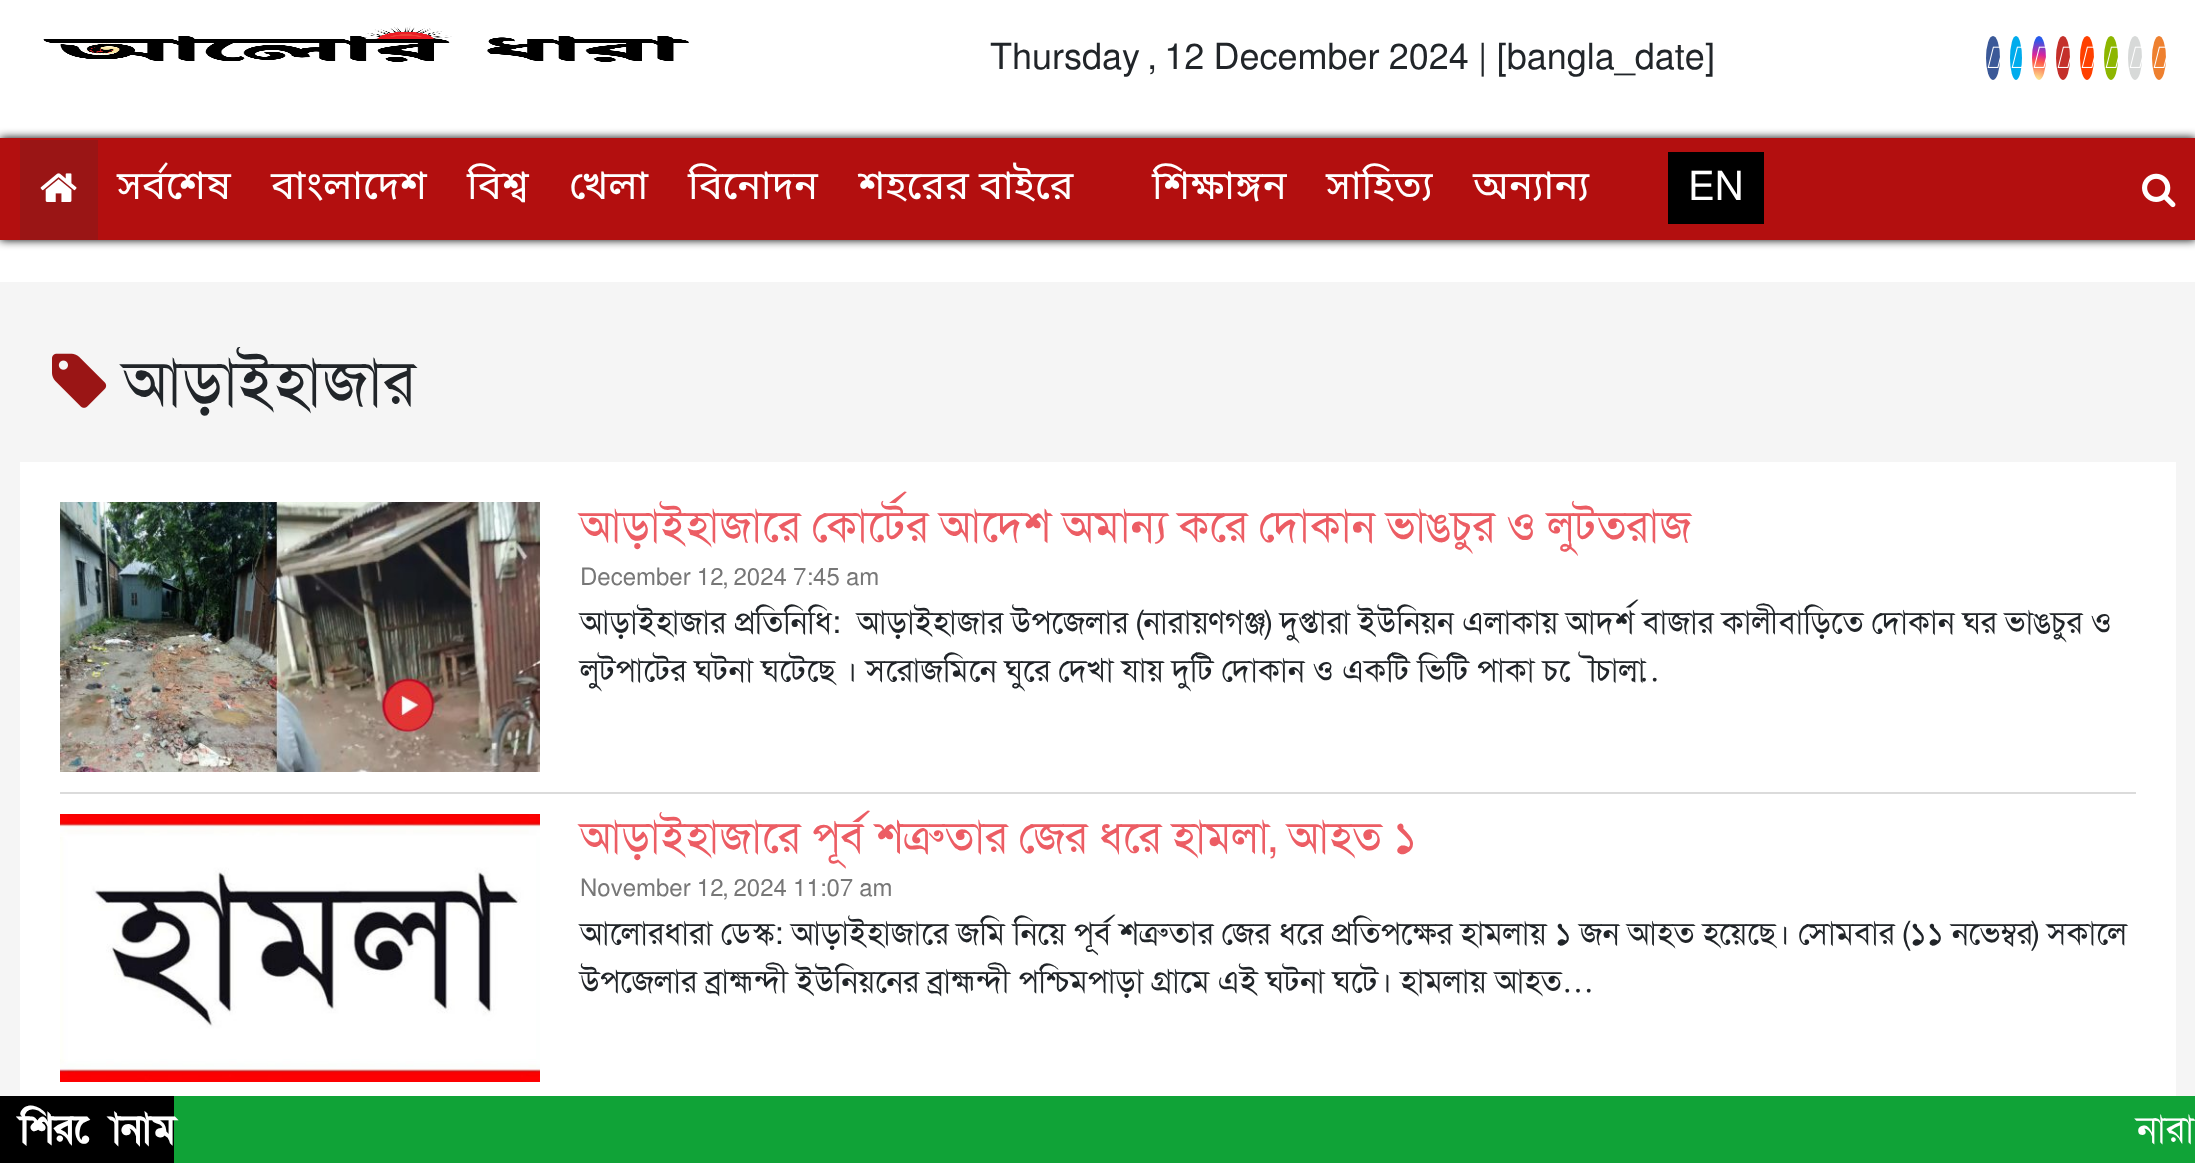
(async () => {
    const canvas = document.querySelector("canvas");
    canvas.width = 2195;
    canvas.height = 1163;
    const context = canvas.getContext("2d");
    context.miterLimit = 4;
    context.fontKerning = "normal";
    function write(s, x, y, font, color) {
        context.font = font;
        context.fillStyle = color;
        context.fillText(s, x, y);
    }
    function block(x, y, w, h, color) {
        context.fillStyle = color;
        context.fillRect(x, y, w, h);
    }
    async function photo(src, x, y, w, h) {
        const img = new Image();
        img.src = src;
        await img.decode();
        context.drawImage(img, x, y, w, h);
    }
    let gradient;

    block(0, 0, 2195, 1163, "rgb(255, 255, 255)");
    await photo("media/1.png", 43, 26, 646, 36);
    write("Thursday , 12 December 2024 | [bangla_date]", 990, 69, "36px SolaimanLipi", "rgb(33, 37, 41)");
    context.fillStyle = "rgb(59, 89, 152)";
    context.beginPath();
    context.ellipse(1993, 58, 7, 22, 0, 0, Math.PI * 2);
    context.fill();
    await photo("media/2.png", 1987, 46, 13, 22);
    context.fillStyle = "rgb(0, 172, 237)";
    context.beginPath();
    context.ellipse(2016, 58, 6, 22, 0, 0, Math.PI * 2);
    context.fill();
    await photo("media/3.png", 2011, 46, 11, 22);
    gradient = context.createRadialGradient(2036, 83, 0, 2036, 83, 48);
    gradient.addColorStop(0, "rgb(253, 244, 151)");
    gradient.addColorStop(0.05, "rgb(253, 244, 151)");
    gradient.addColorStop(0.45, "rgb(253, 89, 73)");
    gradient.addColorStop(0.6, "rgb(214, 36, 159)");
    gradient.addColorStop(0.9, "rgb(40, 90, 235)");
    context.fillStyle = gradient;
    context.beginPath();
    context.ellipse(2039, 58, 7, 22, 0, 0, Math.PI * 2);
    context.fill();
    await photo("media/4.png", 2033, 46, 13, 22);
    context.fillStyle = "rgb(196, 48, 43)";
    context.beginPath();
    context.ellipse(2063, 58, 7, 22, 0, 0, Math.PI * 2);
    context.fill();
    await photo("media/5.png", 2057, 46, 13, 22);
    context.fillStyle = "rgb(255, 64, 0)";
    context.beginPath();
    context.ellipse(2087, 58, 7, 22, 0, 0, Math.PI * 2);
    context.fill();
    await photo("media/6.png", 2081, 46, 13, 22);
    context.fillStyle = "rgb(141, 182, 0)";
    context.beginPath();
    context.ellipse(2111, 58, 7, 22, 0, 0, Math.PI * 2);
    context.fill();
    await photo("media/7.png", 2105, 46, 13, 22);
    context.fillStyle = "rgb(215, 217, 216)";
    context.beginPath();
    context.ellipse(2135, 58, 7, 22, 0, 0, Math.PI * 2);
    context.fill();
    await photo("media/8.png", 2129, 46, 13, 22);
    context.fillStyle = "rgb(238, 128, 47)";
    context.beginPath();
    context.ellipse(2159, 58, 7, 22, 0, 0, Math.PI * 2);
    context.fill();
    await photo("media/9.png", 2153, 46, 13, 22);
    context.fillStyle = "rgb(0, 0, 0)";
    context.filter = "blur(5px)";
    context.beginPath();
    context.rect(0, 138, 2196, 102);
    context.fill();
    context.filter = "none";
    block(0, 138, 2195, 102, "rgb(179, 15, 15)");
    block(20, 140, 78, 100, "rgb(154, 21, 21)");
    await photo("media/10.png", 40, 173, 37, 29);
    write("সর্বশেষ", 117, 199, "40px Noto Sans Bengali", "rgb(255, 255, 255)");
    write("বাংলাদেশ", 271, 199, "40px Noto Sans Bengali", "rgb(255, 255, 255)");
    write("বিশ্ব", 467, 199, "40px Noto Sans Bengali", "rgb(255, 255, 255)");
    write("খেলা", 569, 199, "40px Noto Sans Bengali", "rgb(255, 255, 255)");
    write("বিনোদন", 688, 199, "40px Noto Sans Bengali", "rgb(255, 255, 255)");
    write("শহরের বাইরে", 858, 199, "40px Noto Sans Bengali", "rgb(255, 255, 255)");
    write("শিক্ষাঙ্গন", 1152, 199, "40px Noto Sans Bengali", "rgb(255, 255, 255)");
    write("সাহিত্য", 1326, 199, "40px Noto Sans Bengali", "rgb(255, 255, 255)");
    write("অন্যান্য", 1473, 199, "40px Noto Sans Bengali", "rgb(255, 255, 255)");
    block(1668, 152, 96, 72, "rgb(0, 0, 0)");
    write("EN", 1688, 200, "40px SolaimanLipi", "rgb(255, 255, 255)");
    await photo("media/11.png", 2142, 173, 34, 35);
    block(0, 282, 2195, 814, "rgb(245, 245, 245)");
    await photo("media/12.png", 52, 353, 55, 55);
    write("আড়াইহাজার", 123, 404, "64px SolaimanLipi", "rgb(33, 37, 41)");
    block(20, 462, 2156, 634, "rgb(255, 255, 255)");
    block(60, 792, 2076, 2, "rgb(219, 219, 219)");
    await photo("media/13.png", 60, 502, 480, 270);
    write("আড়াইহাজারে কোর্টের আদেশ অমান্য করে দোকান ভাঙচুর ও লুটতরাজ", 580, 541, "44.8px SolaimanLipi", "rgb(236, 93, 100)");
    write("December 12, 2024 7:45 am", 580, 585, "24px SolaimanLipi", "rgb(119, 119, 119)");
    write("আড়াইহাজার প্রতিনিধি:  আড়াইহাজার উপজেলার (নারায়ণগঞ্জ) দুপ্তারা ইউনিয়ন এলাকায় আদর্শ বাজার কালীবাড়িতে দোকান ঘর ভাঙচুর ও", 580, 633, "32px SolaimanLipi", "rgb(33, 37, 41)");
    write("লুটপাটের ঘটনা ঘটেছে । সরোজমিনে ঘুরে দেখা যায় দুটি দোকান ও একটি ভিটি পাকা চৌচালা", 580, 681, "32px SolaimanLipi", "rgb(33, 37, 41)");
    write("…", 1628, 681, "32px Liberation Serif", "rgb(33, 37, 41)");
    await photo("media/14.png", 60, 814, 480, 268);
    write("আড়াইহাজারে পূর্ব শত্রুতার জের ধরে হামলা, আহত ১", 580, 852, "44.8px SolaimanLipi", "rgb(236, 93, 100)");
    write("November 12, 2024 11:07 am", 580, 896, "24px SolaimanLipi", "rgb(119, 119, 119)");
    write("আলোরধারা ডেস্ক: আড়াইহাজারে জমি নিয়ে পূর্ব শত্রুতার জের ধরে প্রতিপক্ষের হামলায় ১ জন আহত হয়েছে। সোমবার (১১ নভেম্বর) সকালে", 580, 944, "32px SolaimanLipi", "rgb(33, 37, 41)");
    write("উপজেলার ব্রাহ্মন্দী ইউনিয়নের ব্রাহ্মন্দী পশ্চিমপাড়া গ্রামে এই ঘটনা ঘটে। হামলায় আহত", 580, 992, "32px SolaimanLipi", "rgb(33, 37, 41)");
    write("…", 1562, 992, "32px Liberation Serif", "rgb(33, 37, 41)");
    block(174, 1096, 2021, 67, "rgb(16, 163, 55)");
    block(0, 1096, 174, 67, "rgb(0, 0, 0)");
    write("শিরোনাম", 20, 1142, "bold 40px SolaimanLipi", "rgb(255, 255, 255)");
    write("নারা", 2137, 1142, "38px SolaimanLipi", "rgb(255, 255, 255)");
})();
